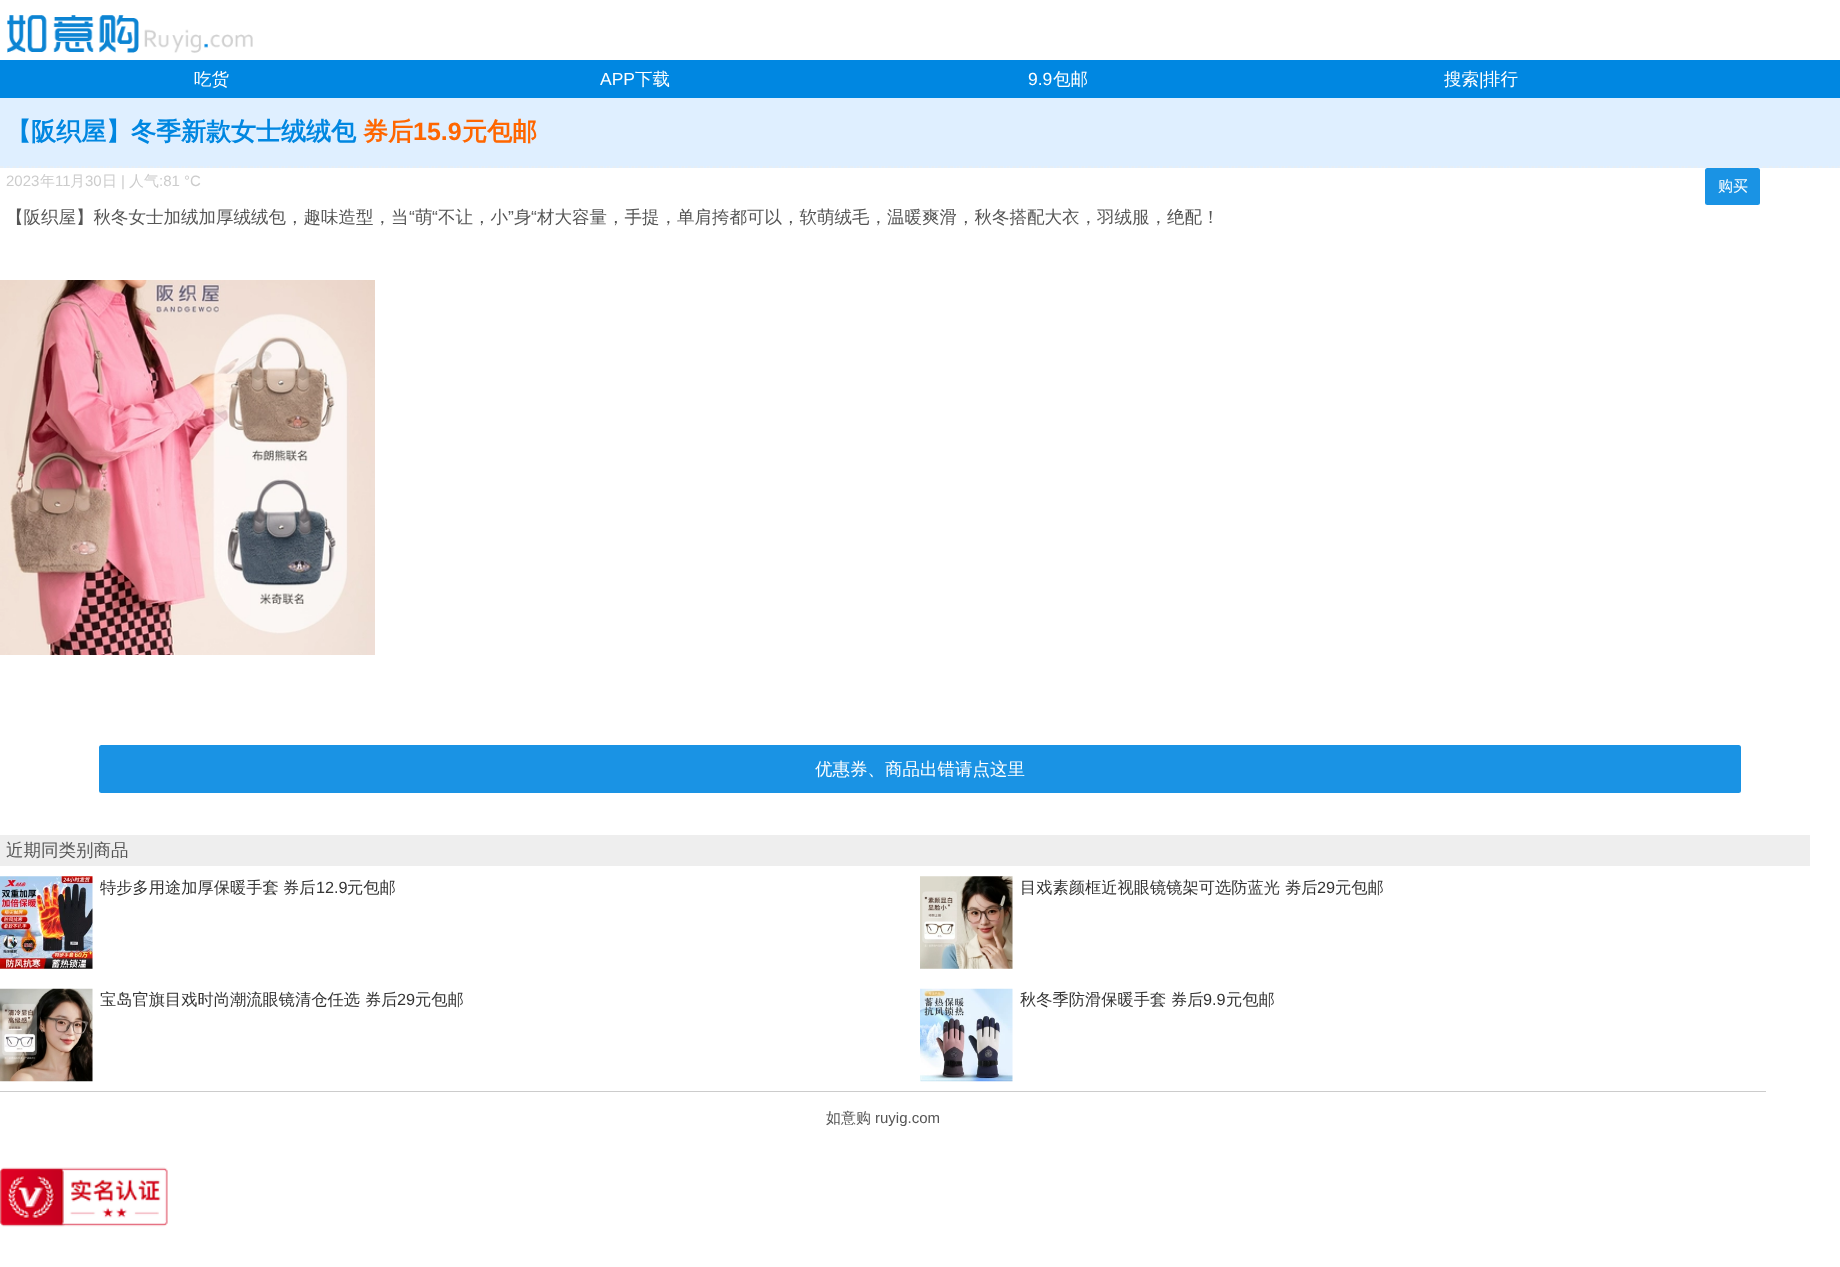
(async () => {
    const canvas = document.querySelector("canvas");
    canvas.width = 1840;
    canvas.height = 1267;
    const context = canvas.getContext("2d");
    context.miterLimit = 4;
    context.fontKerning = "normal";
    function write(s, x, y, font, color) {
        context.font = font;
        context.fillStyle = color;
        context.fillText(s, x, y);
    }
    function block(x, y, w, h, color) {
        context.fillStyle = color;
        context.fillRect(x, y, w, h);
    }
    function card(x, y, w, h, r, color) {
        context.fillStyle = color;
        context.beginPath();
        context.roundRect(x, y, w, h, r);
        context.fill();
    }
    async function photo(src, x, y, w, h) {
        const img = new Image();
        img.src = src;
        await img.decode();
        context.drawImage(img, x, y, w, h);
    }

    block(0, 0, 1840, 1267, "rgb(255, 255, 255)");
    await photo("media/1.png", 7, 15, 246, 38);
    block(0, 60, 1840, 38, "rgb(0, 135, 225)");
    write("吃货", 194, 85, "500 17.5px WenQuanYi Zen Hei", "rgb(255, 255, 255)");
    write("APP", 600, 85, "17.5px Liberation Sans", "rgb(255, 255, 255)");
    write("下载", 635, 85, "500 17.5px WenQuanYi Zen Hei", "rgb(255, 255, 255)");
    write("9.9", 1028, 85, "17.5px Liberation Sans", "rgb(255, 255, 255)");
    write("包邮", 1053, 85, "500 17.5px WenQuanYi Zen Hei", "rgb(255, 255, 255)");
    write("搜索", 1444, 85, "500 17.5px WenQuanYi Zen Hei", "rgb(255, 255, 255)");
    write("|", 1479, 85, "17.5px Liberation Sans", "rgb(255, 255, 255)");
    write("排行", 1483, 85, "500 17.5px WenQuanYi Zen Hei", "rgb(255, 255, 255)");
    block(0, 98, 1840, 70, "rgb(223, 239, 255)");
    context.beginPath();
    context.moveTo(0, 167);
    context.lineTo(1840, 167);
    context.strokeStyle = "rgb(238, 238, 238)";
    context.lineWidth = 1.2;
    context.setLineDash([3.75, 2.5]);
    context.stroke();
    write("【阪织屋】冬季新款女士绒绒包", 6, 140, "bold 25px WenQuanYi Zen Hei", "rgb(0, 135, 225)");
    write("券后", 363, 140, "bold 25px WenQuanYi Zen Hei", "rgb(255, 102, 0)");
    write("15.9", 413, 140, "bold 25px Liberation Sans", "rgb(255, 102, 0)");
    write("元包邮", 462, 140, "bold 25px WenQuanYi Zen Hei", "rgb(255, 102, 0)");
    write("2023", 6, 186, "15px Liberation Sans", "rgb(204, 204, 204)");
    write("年", 40, 186, "500 15px WenQuanYi Zen Hei", "rgb(204, 204, 204)");
    write("11", 55, 186, "15px Liberation Sans", "rgb(204, 204, 204)");
    write("月", 70, 186, "500 15px WenQuanYi Zen Hei", "rgb(204, 204, 204)");
    write("30", 85, 186, "15px Liberation Sans", "rgb(204, 204, 204)");
    write("日", 102, 186, "500 15px WenQuanYi Zen Hei", "rgb(204, 204, 204)");
    write("|", 121, 186, "15px Liberation Sans", "rgb(204, 204, 204)");
    write("人气", 129, 186, "500 15px WenQuanYi Zen Hei", "rgb(204, 204, 204)");
    write(":81 °C", 159, 186, "15px Liberation Sans", "rgb(204, 204, 204)");
    card(1705, 168, 55, 37, 2.5, "rgb(26, 147, 228)");
    write("购买", 1718, 191, "500 15px WenQuanYi Zen Hei", "rgb(255, 255, 255)");
    write("【阪织屋】秋冬女士加绒加厚绒绒包，趣味造型，当", 6, 223, "500 17.5px WenQuanYi Zen Hei", "rgb(85, 85, 85)");
    write("“", 409, 223, "17.5px Liberation Sans", "rgb(85, 85, 85)");
    write("萌", 415, 223, "500 17.5px WenQuanYi Zen Hei", "rgb(85, 85, 85)");
    write("“", 432, 223, "17.5px Liberation Sans", "rgb(85, 85, 85)");
    write("不让，小", 438, 223, "500 17.5px WenQuanYi Zen Hei", "rgb(85, 85, 85)");
    write("”", 508, 223, "17.5px Liberation Sans", "rgb(85, 85, 85)");
    write("身", 514, 223, "500 17.5px WenQuanYi Zen Hei", "rgb(85, 85, 85)");
    write("“", 531, 223, "17.5px Liberation Sans", "rgb(85, 85, 85)");
    write("材大容量，手提，单肩挎都可以，软萌绒毛，温暖爽滑，秋冬搭配大衣，羽绒服，绝配！", 537, 223, "500 17.5px WenQuanYi Zen Hei", "rgb(85, 85, 85)");
    await photo("media/2.png", 0, 280, 375, 375);
    card(99, 745, 1642, 48, 2.5, "rgb(26, 147, 228)");
    write("优惠券、商品出错请点这里", 815, 775, "500 17.5px WenQuanYi Zen Hei", "rgb(255, 255, 255)");
    block(0, 835, 1810, 31, "rgb(238, 238, 238)");
    write("近期同类别商品", 6, 856, "500 17.5px WenQuanYi Zen Hei", "rgb(85, 85, 85)");
    await photo("media/3.png", 0, 876, 93, 93);
    write("特步多用途加厚保暖手套", 100, 893, "500 16.25px WenQuanYi Zen Hei", "rgb(51, 51, 51)");
    write("券后", 283, 893, "500 16.25px WenQuanYi Zen Hei", "rgb(51, 51, 51)");
    write("12.9", 316, 893, "16.25px Liberation Sans", "rgb(51, 51, 51)");
    write("元包邮", 347, 893, "500 16.25px WenQuanYi Zen Hei", "rgb(51, 51, 51)");
    await photo("media/4.png", 920, 876, 93, 93);
    write("目戏素颜框近视眼镜镜架可选防蓝光", 1020, 893, "500 16.25px WenQuanYi Zen Hei", "rgb(51, 51, 51)");
    write("劵后", 1285, 893, "500 16.25px WenQuanYi Zen Hei", "rgb(51, 51, 51)");
    write("29", 1317, 893, "16.25px Liberation Sans", "rgb(51, 51, 51)");
    write("元包邮", 1335, 893, "500 16.25px WenQuanYi Zen Hei", "rgb(51, 51, 51)");
    await photo("media/5.png", 0, 988, 93, 94);
    write("宝岛官旗目戏时尚潮流眼镜清仓任选", 100, 1005, "500 16.25px WenQuanYi Zen Hei", "rgb(51, 51, 51)");
    write("券后", 365, 1005, "500 16.25px WenQuanYi Zen Hei", "rgb(51, 51, 51)");
    write("29", 397, 1005, "16.25px Liberation Sans", "rgb(51, 51, 51)");
    write("元包邮", 415, 1005, "500 16.25px WenQuanYi Zen Hei", "rgb(51, 51, 51)");
    await photo("media/6.png", 920, 988, 93, 94);
    write("秋冬季防滑保暖手套", 1020, 1005, "500 16.25px WenQuanYi Zen Hei", "rgb(51, 51, 51)");
    write("券后", 1171, 1005, "500 16.25px WenQuanYi Zen Hei", "rgb(51, 51, 51)");
    write("9.9", 1203, 1005, "16.25px Liberation Sans", "rgb(51, 51, 51)");
    write("元包邮", 1226, 1005, "500 16.25px WenQuanYi Zen Hei", "rgb(51, 51, 51)");
    block(0, 1091, 1766, 1, "rgb(204, 204, 204)");
    write("如意购", 826, 1123, "500 15px WenQuanYi Zen Hei", "rgb(85, 85, 85)");
    write("ruyig.com", 875, 1123, "15px Liberation Sans", "rgb(85, 85, 85)");
    await photo("media/7.png", 0, 1167, 168, 60);
})();
